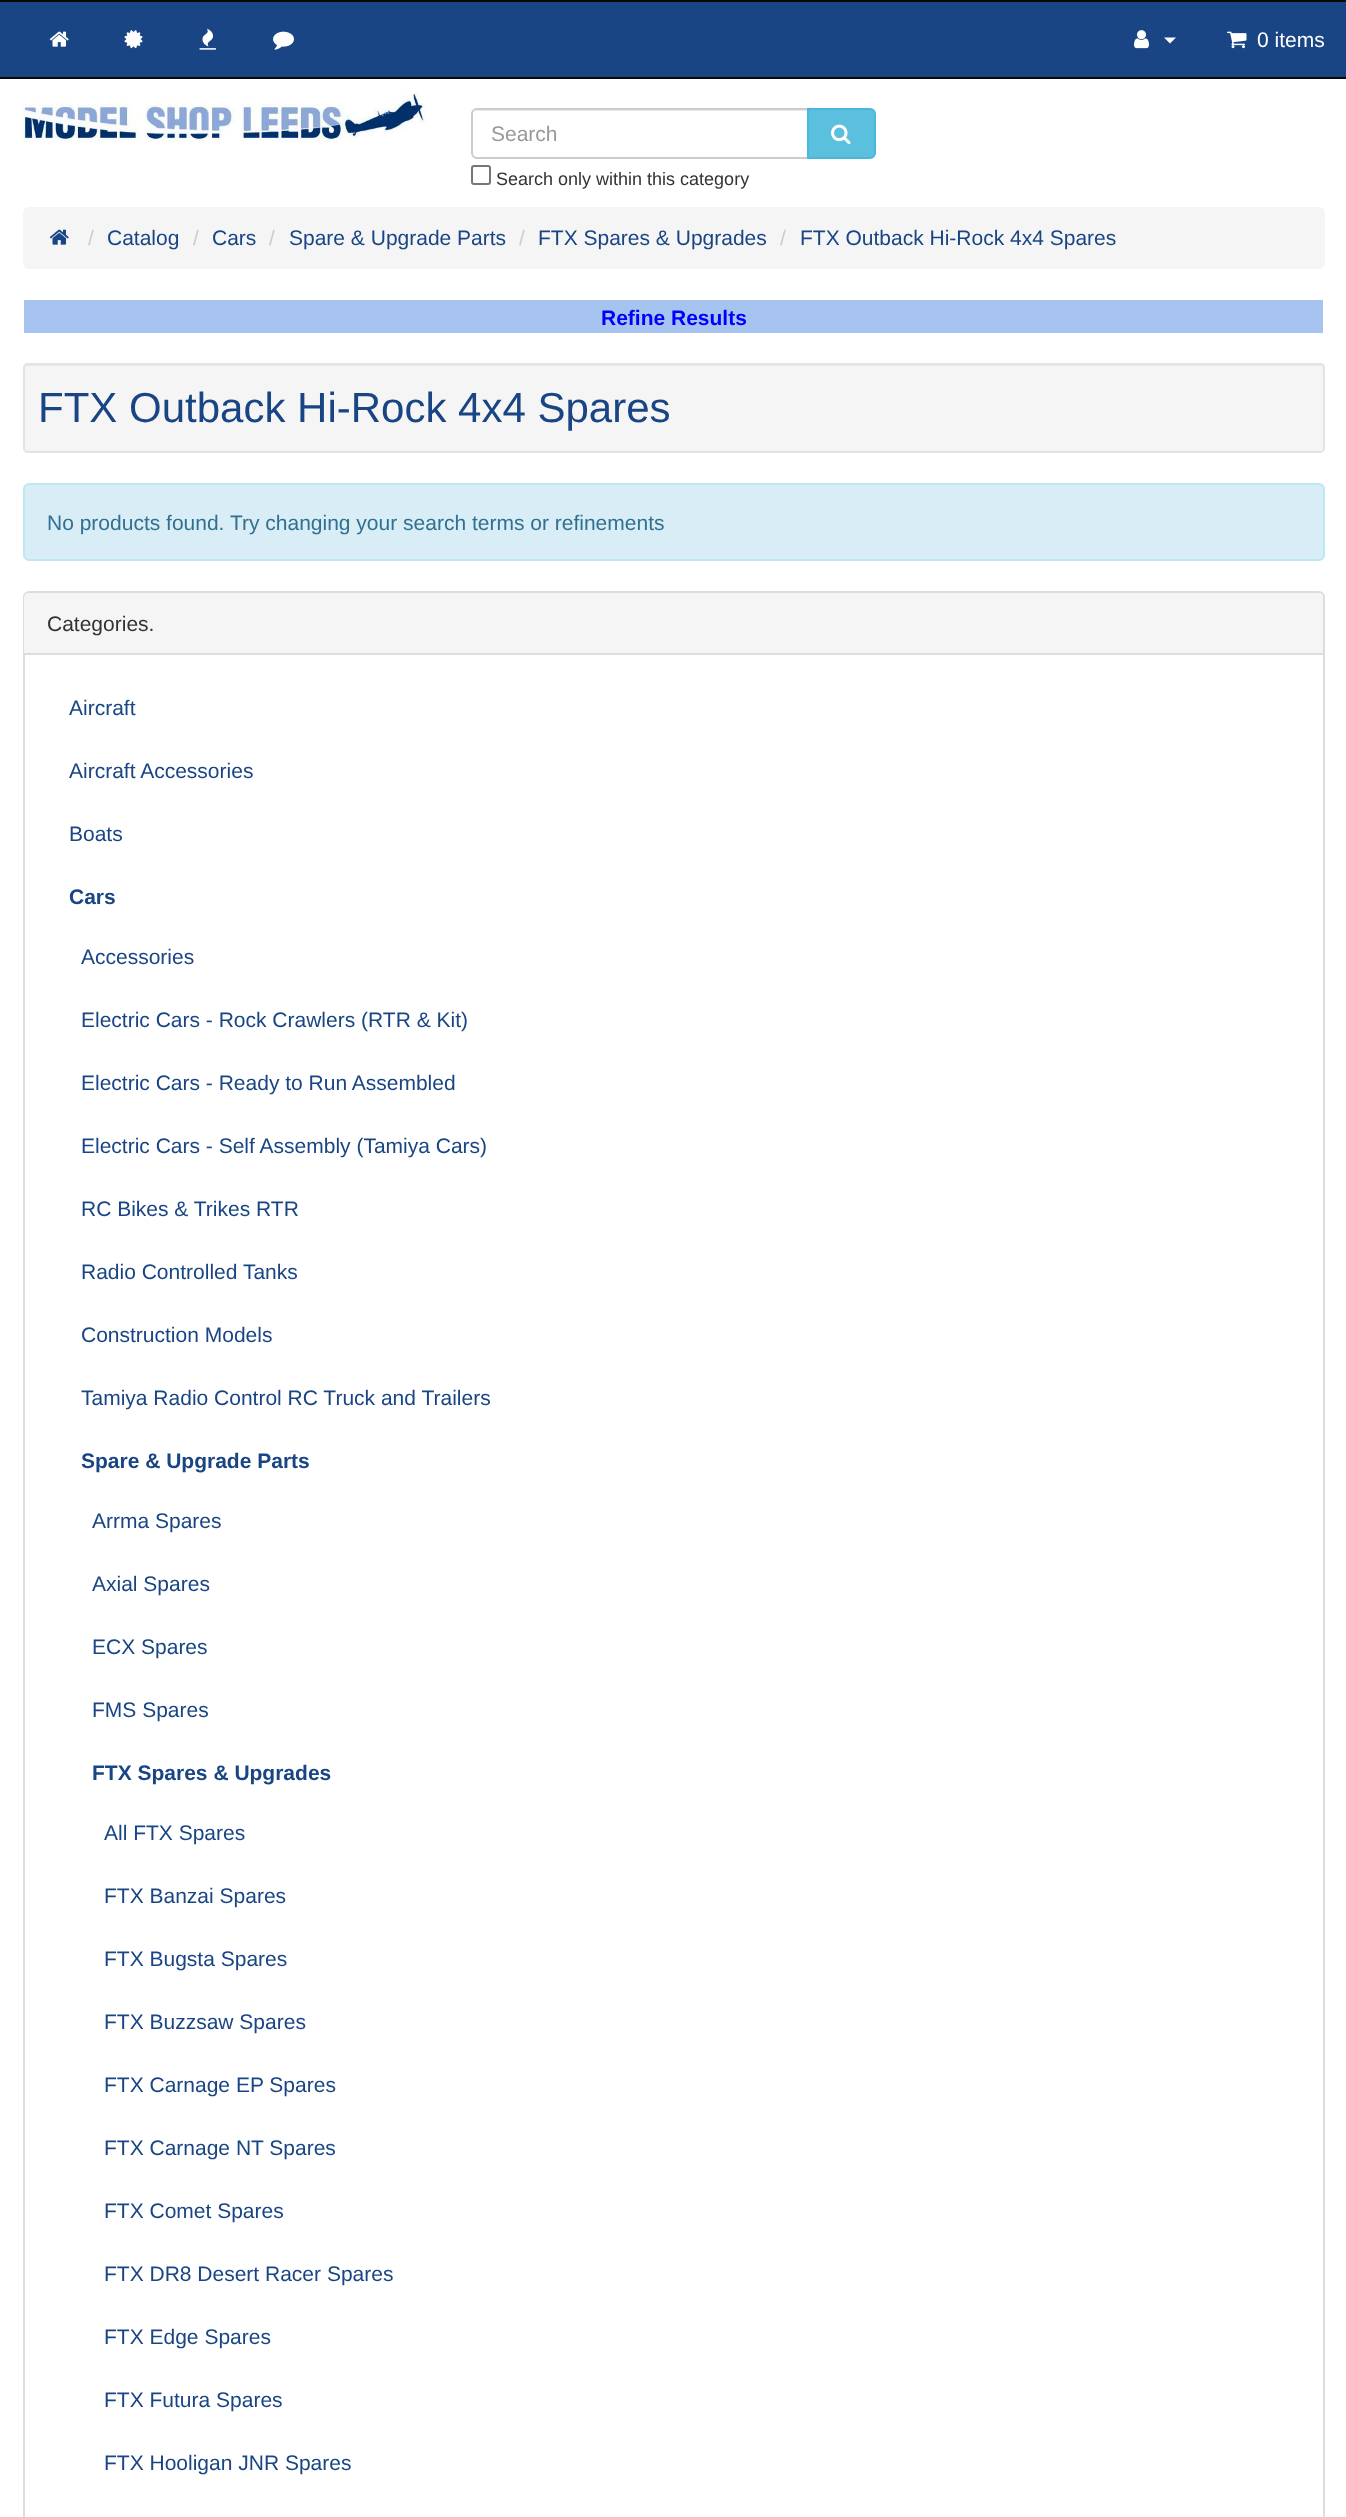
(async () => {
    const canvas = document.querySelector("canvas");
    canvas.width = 1346;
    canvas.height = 2517;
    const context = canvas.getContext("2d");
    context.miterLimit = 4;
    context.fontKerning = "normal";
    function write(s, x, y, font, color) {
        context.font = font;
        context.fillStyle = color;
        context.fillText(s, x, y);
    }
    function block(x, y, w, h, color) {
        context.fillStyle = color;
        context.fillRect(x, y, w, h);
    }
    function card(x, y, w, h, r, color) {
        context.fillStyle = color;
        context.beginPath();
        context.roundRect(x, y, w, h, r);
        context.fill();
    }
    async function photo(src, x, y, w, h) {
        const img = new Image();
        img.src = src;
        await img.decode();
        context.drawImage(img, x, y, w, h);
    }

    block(0, 0, 1346, 2517, "rgb(255, 255, 255)");
    block(0, 2, 1346, 75, "rgb(25, 69, 132)");
    block(0, 0, 1346, 2, "rgb(8, 8, 8)");
    block(0, 77, 1346, 2, "rgb(8, 8, 8)");
    await photo("media/1.png", 49, 31, 20, 16);
    await photo("media/2.png", 124, 30, 19, 19);
    await photo("media/3.png", 199, 28, 17, 22);
    await photo("media/4.png", 273, 31, 21, 19);
    await photo("media/5.png", 1134, 30, 15, 19);
    context.fillStyle = "rgb(255, 255, 255)";
    context.beginPath();
    context.moveTo(1164, 37.5);
    context.lineTo(1176, 37.5);
    context.lineTo(1170, 43.5);
    context.closePath();
    context.fill();
    await photo("media/6.png", 1227, 31, 20, 18);
    write("0 items", 1257, 47, "21px Liberation Sans", "rgb(255, 255, 255)");
    await photo("media/7.png", 22, 93, 404, 50);
    context.fillStyle = "rgb(236, 236, 236)";
    context.beginPath();
    context.moveTo(477, 111);
    context.lineTo(807, 111);
    context.lineTo(807, 110);
    context.lineTo(478, 110);
    context.bezierCurveTo(476, 110, 475, 111, 474, 112);
    context.closePath();
    context.fill();
    context.beginPath();
    context.roundRect(472, 109, 336, 49, [5, 0, 0, 5]);
    context.strokeStyle = "rgb(204, 204, 204)";
    context.lineWidth = 2;
    context.stroke();
    write("Search", 491, 141, "21px Liberation Sans", "rgb(153, 153, 153)");
    context.fillStyle = "rgb(91, 192, 222)";
    context.beginPath();
    context.roundRect(808, 109, 67, 49, [0, 5, 5, 0]);
    context.fill();
    context.strokeStyle = "rgb(70, 184, 218)";
    context.stroke();
    await photo("media/8.png", 831, 124, 20, 21);
    context.beginPath();
    context.roundRect(472, 166, 18, 18, 2);
    context.strokeStyle = "rgb(118, 118, 118)";
    context.stroke();
    write("Search only within this category", 496, 185, "18px Liberation Sans", "rgb(51, 51, 51)");
    card(23, 207, 1302, 62, 6, "rgb(245, 245, 245)");
    await photo("media/9.png", 49, 229, 20, 16);
    write("/", 88, 245, "21px Liberation Sans", "rgb(204, 204, 204)");
    write("Catalog", 107, 245, "21px Liberation Sans", "rgb(25, 69, 132)");
    write("/", 193, 245, "21px Liberation Sans", "rgb(204, 204, 204)");
    write("Cars", 212, 245, "21px Liberation Sans", "rgb(25, 69, 132)");
    write("/", 269, 245, "21px Liberation Sans", "rgb(204, 204, 204)");
    write("Spare & Upgrade Parts", 289, 245, "21px Liberation Sans", "rgb(25, 69, 132)");
    write("/", 519, 245, "21px Liberation Sans", "rgb(204, 204, 204)");
    write("FTX Spares & Upgrades", 538, 245, "21px Liberation Sans", "rgb(25, 69, 132)");
    write("/", 780, 245, "21px Liberation Sans", "rgb(204, 204, 204)");
    write("FTX Outback Hi-Rock 4x4 Spares", 800, 245, "21px Liberation Sans", "rgb(25, 69, 132)");
    block(24, 300, 1299, 33, "rgb(167, 195, 239)");
    write("Refine Results", 601, 325, "bold 21px Liberation Sans", "rgb(0, 0, 255)");
    card(23, 363, 1302, 90, 5, "rgb(245, 245, 245)");
    context.fillStyle = "rgb(233, 233, 233)";
    context.beginPath();
    context.moveTo(27, 366);
    context.lineTo(1320, 366);
    context.bezierCurveTo(1322, 366, 1323, 367, 1323, 369);
    context.lineTo(1323, 368);
    context.bezierCurveTo(1323, 366, 1322, 365, 1320, 365);
    context.lineTo(27, 365);
    context.bezierCurveTo(25, 365, 24, 366, 24, 368);
    context.lineTo(24, 369);
    context.bezierCurveTo(24, 367, 25, 366, 27, 366);
    context.closePath();
    context.fill();
    context.beginPath();
    context.roundRect(24, 364, 1300, 88, 4);
    context.strokeStyle = "rgb(227, 227, 227)";
    context.stroke();
    write("FTX Outback Hi-Rock 4x4 Spares", 38, 422, "42px Liberation Sans", "rgb(25, 69, 132)");
    context.fillStyle = "rgb(217, 237, 247)";
    context.beginPath();
    context.roundRect(24, 484, 1300, 76, 5);
    context.fill();
    context.strokeStyle = "rgb(188, 232, 241)";
    context.stroke();
    write("No products found. Try changing your search terms or refinements", 47, 530, "21px Liberation Sans", "rgb(49, 112, 143)");
    context.beginPath();
    context.roundRect(24, 592, 1300, 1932, 5);
    context.strokeStyle = "rgb(221, 221, 221)";
    context.stroke();
    context.fillStyle = "rgb(245, 245, 245)";
    context.beginPath();
    context.roundRect(24, 593, 1299, 61, [5, 5, 0, 0]);
    context.fill();
    block(24, 653, 1299, 2, "rgb(221, 221, 221)");
    write("Categories.", 47, 631, "21px Liberation Sans", "rgb(51, 51, 51)");
    write("Aircraft", 69, 715, "21px Liberation Sans", "rgb(25, 69, 132)");
    write("Aircraft Accessories", 69, 778, "21px Liberation Sans", "rgb(25, 69, 132)");
    write("Boats", 69, 841, "21px Liberation Sans", "rgb(25, 69, 132)");
    write("Cars", 69, 904, "bold 21px Liberation Sans", "rgb(25, 69, 132)");
    write("Accessories", 81, 964, "21px Liberation Sans", "rgb(25, 69, 132)");
    write("Electric Cars - Rock Crawlers (RTR & Kit)", 81, 1027, "21px Liberation Sans", "rgb(25, 69, 132)");
    write("Electric Cars - Ready to Run Assembled", 81, 1090, "21px Liberation Sans", "rgb(25, 69, 132)");
    write("Electric Cars - Self Assembly (Tamiya Cars)", 81, 1153, "21px Liberation Sans", "rgb(25, 69, 132)");
    write("RC Bikes & Trikes RTR", 81, 1216, "21px Liberation Sans", "rgb(25, 69, 132)");
    write("Radio Controlled Tanks", 81, 1279, "21px Liberation Sans", "rgb(25, 69, 132)");
    write("Construction Models", 81, 1342, "21px Liberation Sans", "rgb(25, 69, 132)");
    write("Tamiya Radio Control RC Truck and Trailers", 81, 1405, "21px Liberation Sans", "rgb(25, 69, 132)");
    write("Spare & Upgrade Parts", 81, 1468, "bold 21px Liberation Sans", "rgb(25, 69, 132)");
    write("Arrma Spares", 92, 1528, "21px Liberation Sans", "rgb(25, 69, 132)");
    write("Axial Spares", 92, 1591, "21px Liberation Sans", "rgb(25, 69, 132)");
    write("ECX Spares", 92, 1654, "21px Liberation Sans", "rgb(25, 69, 132)");
    write("FMS Spares", 92, 1717, "21px Liberation Sans", "rgb(25, 69, 132)");
    write("FTX Spares & Upgrades", 92, 1780, "bold 21px Liberation Sans", "rgb(25, 69, 132)");
    write("All FTX Spares", 104, 1840, "21px Liberation Sans", "rgb(25, 69, 132)");
    write("FTX Banzai Spares", 104, 1903, "21px Liberation Sans", "rgb(25, 69, 132)");
    write("FTX Bugsta Spares", 104, 1966, "21px Liberation Sans", "rgb(25, 69, 132)");
    write("FTX Buzzsaw Spares", 104, 2029, "21px Liberation Sans", "rgb(25, 69, 132)");
    write("FTX Carnage EP Spares", 104, 2092, "21px Liberation Sans", "rgb(25, 69, 132)");
    write("FTX Carnage NT Spares", 104, 2155, "21px Liberation Sans", "rgb(25, 69, 132)");
    write("FTX Comet Spares", 104, 2218, "21px Liberation Sans", "rgb(25, 69, 132)");
    write("FTX DR8 Desert Racer Spares", 104, 2281, "21px Liberation Sans", "rgb(25, 69, 132)");
    write("FTX Edge Spares", 104, 2344, "21px Liberation Sans", "rgb(25, 69, 132)");
    write("FTX Futura Spares", 104, 2407, "21px Liberation Sans", "rgb(25, 69, 132)");
    write("FTX Hooligan JNR Spares", 104, 2470, "21px Liberation Sans", "rgb(25, 69, 132)");
})();
